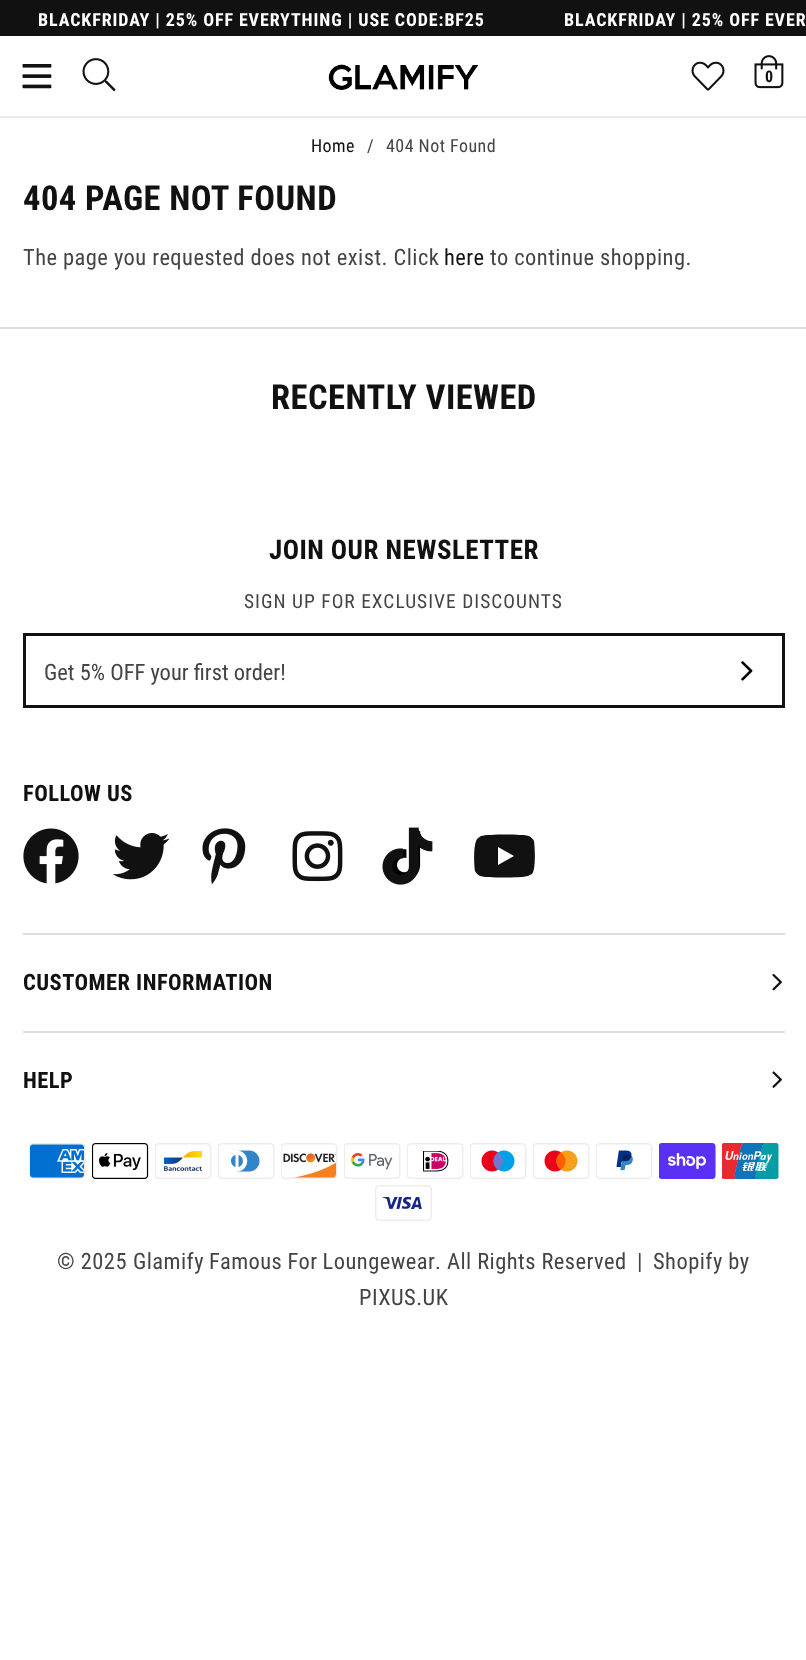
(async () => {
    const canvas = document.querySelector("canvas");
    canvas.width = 806;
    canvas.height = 1660;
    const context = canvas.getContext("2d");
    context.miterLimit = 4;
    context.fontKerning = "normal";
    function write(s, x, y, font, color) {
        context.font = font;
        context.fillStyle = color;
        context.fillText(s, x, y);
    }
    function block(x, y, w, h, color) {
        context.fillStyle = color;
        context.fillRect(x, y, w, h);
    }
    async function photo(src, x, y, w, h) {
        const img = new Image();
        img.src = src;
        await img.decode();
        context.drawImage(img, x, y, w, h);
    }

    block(0, 0, 806, 1660, "rgb(255, 255, 255)");
    block(0, 116, 806, 2, "rgb(234, 234, 234)");
    block(0, 0, 806, 36, "rgb(17, 17, 17)");
    context.letterSpacing = "0.9px";
    write("BLACKFRIDAY | 25% OFF EVERYTHING | USE CODE:BF25", 38, 26, "bold 18px Roboto Condensed", "rgb(255, 255, 255)");
    write("BLACKFRIDAY | 25% OFF EVER", 564, 26, "bold 18px Roboto Condensed", "rgb(255, 255, 255)");
    await photo("media/1.png", 22, 64, 30, 25);
    await photo("media/2.png", 82, 58, 34, 34);
    await photo("media/3.png", 328, 64, 150, 26);
    await photo("media/4.png", 691, 61, 34, 30);
    await photo("media/5.png", 754, 55, 30, 34);
    context.letterSpacing = "0.45px";
    write("0", 765, 82, "bold 16px Roboto Condensed", "rgb(17, 17, 17)");
    write("Home", 311, 152, "18px Roboto Condensed", "rgb(17, 17, 17)");
    write("/", 367, 152, "18px Roboto Condensed", "rgb(68, 68, 68)");
    write("404 Not Found", 386, 152, "18px Roboto Condensed", "rgb(68, 68, 68)");
    write("404 PAGE NOT FOUND", 23, 210, "bold 34.5px Roboto Condensed", "rgb(17, 17, 17)");
    write("The page you requested does not exist. Click", 23, 265, "22.5px Roboto Condensed", "rgb(68, 68, 68)");
    write("here", 444, 265, "22.5px Roboto Condensed", "rgb(17, 17, 17)");
    write("to continue shopping.", 490, 265, "22.5px Roboto Condensed", "rgb(68, 68, 68)");
    block(0, 327, 806, 2, "rgb(221, 221, 221)");
    write("RECENTLY VIEWED", 271, 409, "bold 34.5px Roboto Condensed", "rgb(17, 17, 17)");
    write("JOIN OUR NEWSLETTER", 269, 559, "bold 27px Roboto Condensed", "rgb(17, 17, 17)");
    context.letterSpacing = "1px";
    write("SIGN UP FOR EXCLUSIVE DISCOUNTS", 244, 608, "19.5px Roboto Condensed", "rgb(68, 68, 68)");
    context.strokeStyle = "rgb(17, 17, 17)";
    context.lineWidth = 3;
    context.strokeRect(24.5, 634.5, 759, 72);
    context.letterSpacing = "0px";
    write("Get 5% OFF your first order!", 44, 680, "22.5px Roboto Condensed", "rgb(68, 68, 68)");
    await photo("media/6.png", 741, 661, 12, 20);
    context.letterSpacing = "0.45px";
    write("FOLLOW US", 23, 801, "bold 22.5px Roboto Condensed", "rgb(17, 17, 17)");
    await photo("media/7.png", 23, 828, 56, 56);
    await photo("media/8.png", 112, 833, 58, 47);
    await photo("media/9.png", 202, 828, 44, 56);
    await photo("media/10.png", 292, 831, 51, 51);
    await photo("media/11.png", 392, 831, 40, 47);
    await photo("media/12.png", 382, 827, 51, 58);
    context.beginPath();
    context.moveTo(534, 841);
    context.bezierCurveTo(535, 848, 536, 870, 532, 874);
    context.lineTo(528, 876);
    context.bezierCurveTo(521, 878, 486, 878, 480, 876);
    context.bezierCurveTo(478, 875, 476, 873, 475, 871);
    context.bezierCurveTo(474, 864, 473, 842, 478, 838);
    context.lineTo(481, 836);
    context.bezierCurveTo(488, 834, 523, 834, 529, 836);
    context.bezierCurveTo(531, 837, 533, 839, 534, 841);
    context.closePath();
    context.moveTo(498, 865);
    context.lineTo(514, 856);
    context.lineTo(498, 847);
    context.closePath();
    context.fill();
    await photo("media/13.png", 29, 1143, 57, 36);
    await photo("media/14.png", 92, 1143, 57, 36);
    await photo("media/15.png", 155, 1143, 57, 36);
    await photo("media/16.png", 218, 1143, 57, 36);
    await photo("media/17.png", 281, 1143, 57, 36);
    await photo("media/18.png", 344, 1143, 57, 36);
    await photo("media/19.png", 407, 1143, 57, 36);
    await photo("media/20.png", 470, 1143, 57, 36);
    await photo("media/21.png", 533, 1143, 57, 36);
    await photo("media/22.png", 596, 1143, 57, 36);
    await photo("media/23.png", 659, 1143, 57, 36);
    await photo("media/24.png", 722, 1143, 57, 36);
    await photo("media/25.png", 375, 1185, 57, 36);
    block(23, 933, 762, 2, "rgb(221, 221, 221)");
    write("CUSTOMER INFORMATION", 23, 990, "bold 22.5px Roboto Condensed", "rgb(17, 17, 17)");
    await photo("media/26.png", 772, 973, 10, 18);
    block(23, 1031, 762, 2, "rgb(221, 221, 221)");
    write("HELP", 23, 1088, "bold 22.5px Roboto Condensed", "rgb(17, 17, 17)");
    await photo("media/27.png", 772, 1071, 10, 17);
    write("© 2025", 57, 1269, "22.5px Roboto Condensed", "rgb(68, 68, 68)");
    context.wordSpacing = "-0.5px";
    write("Glamify Famous For Loungewear", 133, 1269, "22.5px Roboto Condensed", "rgb(68, 68, 68)");
    context.wordSpacing = "0px";
    write(". All Rights Reserved", 435, 1269, "22.5px Roboto Condensed", "rgb(68, 68, 68)");
    write("|", 637, 1269, "22.5px Roboto Condensed", "rgb(68, 68, 68)");
    write("Shopify by", 653, 1269, "22.5px Roboto Condensed", "rgb(68, 68, 68)");
    write("PIXUS.UK", 359, 1305, "22.5px Roboto Condensed", "rgb(68, 68, 68)");
})();
